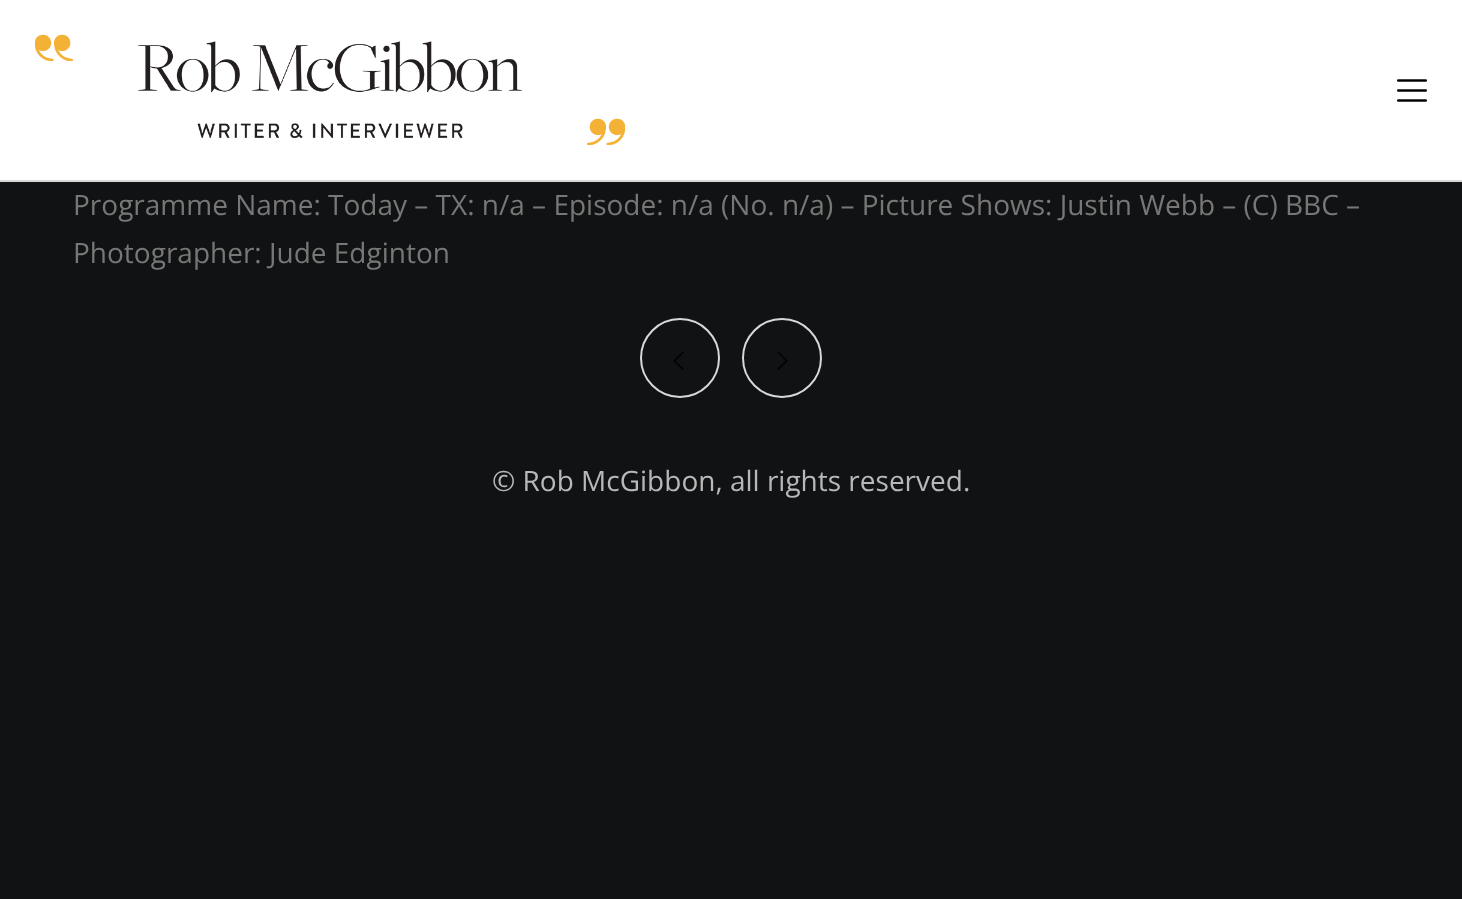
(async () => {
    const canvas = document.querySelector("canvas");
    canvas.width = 1462;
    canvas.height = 899;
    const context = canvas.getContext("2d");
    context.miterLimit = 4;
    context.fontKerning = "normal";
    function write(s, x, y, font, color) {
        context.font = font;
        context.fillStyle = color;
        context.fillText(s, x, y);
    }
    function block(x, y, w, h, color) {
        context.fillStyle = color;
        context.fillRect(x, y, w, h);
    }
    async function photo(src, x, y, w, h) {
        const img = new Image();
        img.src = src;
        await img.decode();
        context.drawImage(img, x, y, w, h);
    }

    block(0, 0, 1462, 899, "rgb(17, 18, 19)");
    block(0, 0, 1462, 180, "rgb(255, 255, 255)");
    block(0, 180, 1462, 2, "rgb(216, 216, 216)");
    await photo("media/1.png", 35, 34, 591, 111);
    await photo("media/2.png", 1397, 79, 30, 23);
    write("Programme Name: Today – TX: n/a – Episode: n/a (No. n/a) – Picture Shows: Justin Webb – (C) BBC –", 73, 215, "28px Open Sans", "rgb(119, 119, 119)");
    write("Photographer: Jude Edginton", 73, 263, "28px Open Sans", "rgb(119, 119, 119)");
    context.beginPath();
    context.arc(680, 358, 39, 0, Math.PI * 2);
    context.strokeStyle = "rgb(216, 216, 216)";
    context.lineWidth = 2;
    context.stroke();
    await photo("media/3.png", 673, 352, 11, 18);
    context.beginPath();
    context.arc(782, 358, 39, 0, Math.PI * 2);
    context.stroke();
    await photo("media/4.png", 777, 352, 11, 18);
    write("© Rob McGibbon, all rights reserved.", 492, 491, "28px Open Sans", "rgb(184, 184, 185)");
})();
